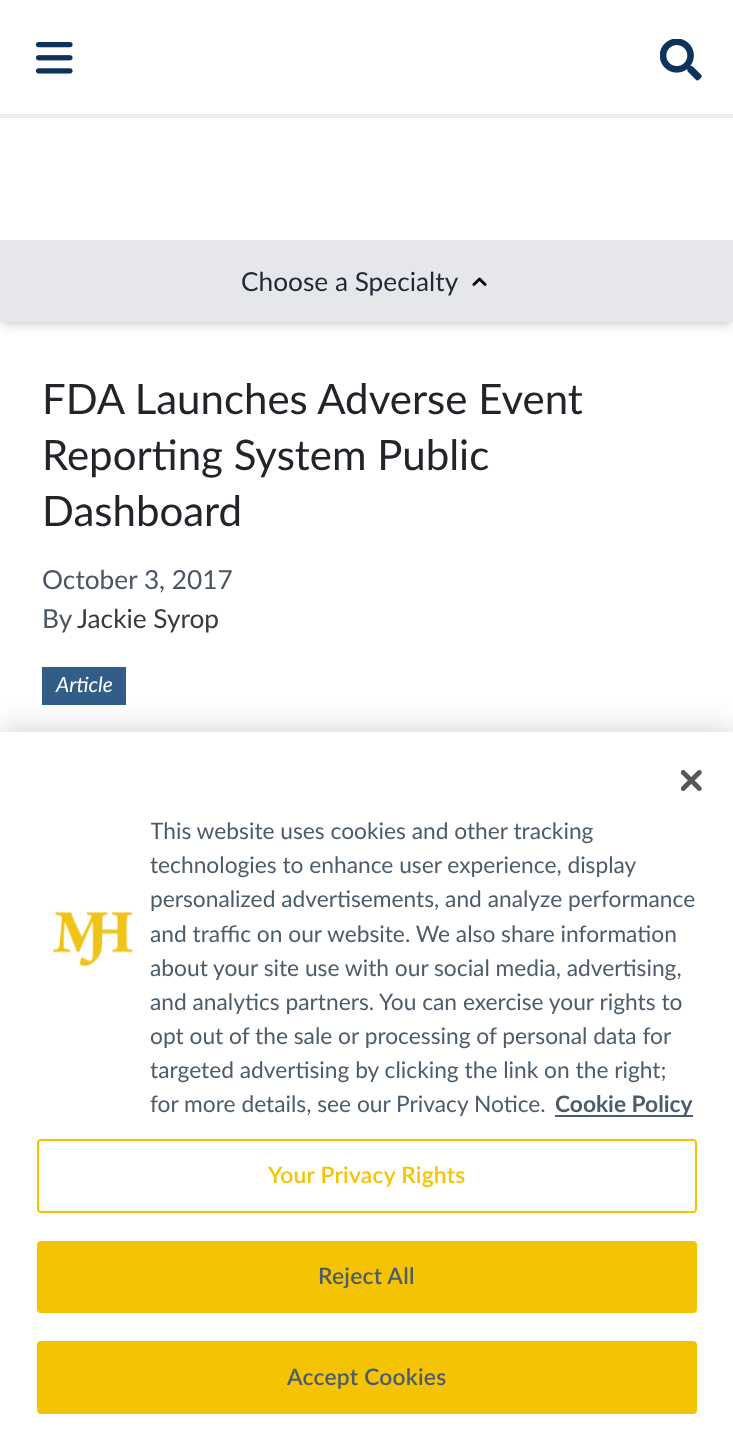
(async () => {
    const canvas = document.querySelector("canvas");
    canvas.width = 733;
    canvas.height = 1441;
    const context = canvas.getContext("2d");
    context.miterLimit = 4;
    context.fontKerning = "normal";
    function write(s, x, y, font, color) {
        context.font = font;
        context.fillStyle = color;
        context.fillText(s, x, y);
    }
    function block(x, y, w, h, color) {
        context.fillStyle = color;
        context.fillRect(x, y, w, h);
    }
    async function photo(src, x, y, w, h) {
        const img = new Image();
        img.src = src;
        await img.decode();
        context.drawImage(img, x, y, w, h);
    }

    block(0, 0, 733, 1441, "rgb(255, 255, 255)");
    await photo("media/1.png", 35, 42, 38, 32);
    await photo("media/2.png", 660, 39, 42, 42);
    block(0, 114, 733, 4, "rgb(238, 238, 238)");
    context.fillStyle = "rgba(0, 0, 0, 0.1)";
    context.filter = "blur(3.5px)";
    context.beginPath();
    context.rect(4, 247, 726, 75);
    context.fill();
    context.filter = "none";
    context.filter = "blur(5px)";
    context.beginPath();
    context.rect(2, 249, 730, 78);
    context.fill();
    context.filter = "none";
    block(0, 240, 733, 82, "rgb(229, 231, 235)");
    write("Choose a Specialty", 241, 291, "26.25px Lato", "rgb(31, 41, 55)");
    await photo("media/3.png", 472, 277, 15, 9);
    write("FDA Launches Adverse Event", 42, 414, "42px Lato", "rgb(33, 37, 41)");
    write("Reporting System Public", 42, 470, "42px Lato", "rgb(33, 37, 41)");
    write("Dashboard", 42, 526, "42px Lato", "rgb(33, 37, 41)");
    write("October 3, 2017", 42, 589, "26.25px Lato", "rgb(75, 85, 99)");
    write("By", 42, 628, "26.25px Lato", "rgb(75, 85, 99)");
    write("Jackie Syrop", 77, 628, "26.25px Lato", "rgb(55, 58, 60)");
    block(42, 667, 84, 38, "rgb(50, 93, 136)");
    write("Article", 56, 692, "italic 21px Lato", "rgb(255, 255, 255)");
    context.fillStyle = "rgba(0, 0, 0, 0.2)";
    context.filter = "blur(16px)";
    context.beginPath();
    context.rect(0, 732, 733, 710);
    context.fill();
    context.filter = "none";
    block(0, 732, 733, 709, "rgb(255, 255, 255)");
    await photo("media/4.png", 681, 770, 21, 21);
    await photo("media/5.png", 52, 911, 81, 56);
    context.save();
    context.beginPath();
    context.rect(151, 816, 546, 306);
    context.clip();
    write("This website uses cookies and other tracking", 150, 839, "22.75px Lato", "rgb(76, 92, 107)");
    context.restore();
    write("technologies to enhance user experience, display", 150, 873, "22.75px Lato", "rgb(76, 92, 107)");
    write("personalized advertisements, and analyze performance", 150, 907, "22.75px Lato", "rgb(76, 92, 107)");
    write("and traffic on our website. We also share information", 150, 942, "22.75px Lato", "rgb(76, 92, 107)");
    write("about your site use with our social media, advertising,", 150, 976, "22.75px Lato", "rgb(76, 92, 107)");
    write("and analytics partners. You can exercise your rights to", 150, 1010, "22.75px Lato", "rgb(76, 92, 107)");
    write("opt out of the sale or processing of personal data for", 150, 1044, "22.75px Lato", "rgb(76, 92, 107)");
    write("targeted advertising by clicking the link on the right;", 150, 1078, "22.75px Lato", "rgb(76, 92, 107)");
    write("for more details, see our Privacy Notice.", 150, 1112, "22.75px Lato", "rgb(76, 92, 107)");
    block(555, 1115, 138, 2, "rgb(76, 92, 107)");
    write("Cookie Policy", 555, 1112, "bold 22.75px Lato", "rgb(76, 92, 107)");
    context.beginPath();
    context.roundRect(38, 1140, 658, 72, 3);
    context.strokeStyle = "rgb(244, 196, 4)";
    context.lineWidth = 2;
    context.stroke();
    context.letterSpacing = "0.25px";
    write("Your Privacy Rights", 268, 1183, "600 22.75px Lato", "rgb(244, 196, 4)");
    context.beginPath();
    context.roundRect(38, 1242, 658, 70, 3);
    context.fill();
    context.stroke();
    write("Reject All", 318, 1284, "600 22.75px Lato", "rgb(76, 92, 107)");
    context.fillStyle = "rgb(244, 196, 4)";
    context.beginPath();
    context.roundRect(38, 1342, 658, 71, 3);
    context.fill();
    context.stroke();
    write("Accept Cookies", 287, 1385, "600 22.75px Lato", "rgb(76, 92, 107)");
})();
